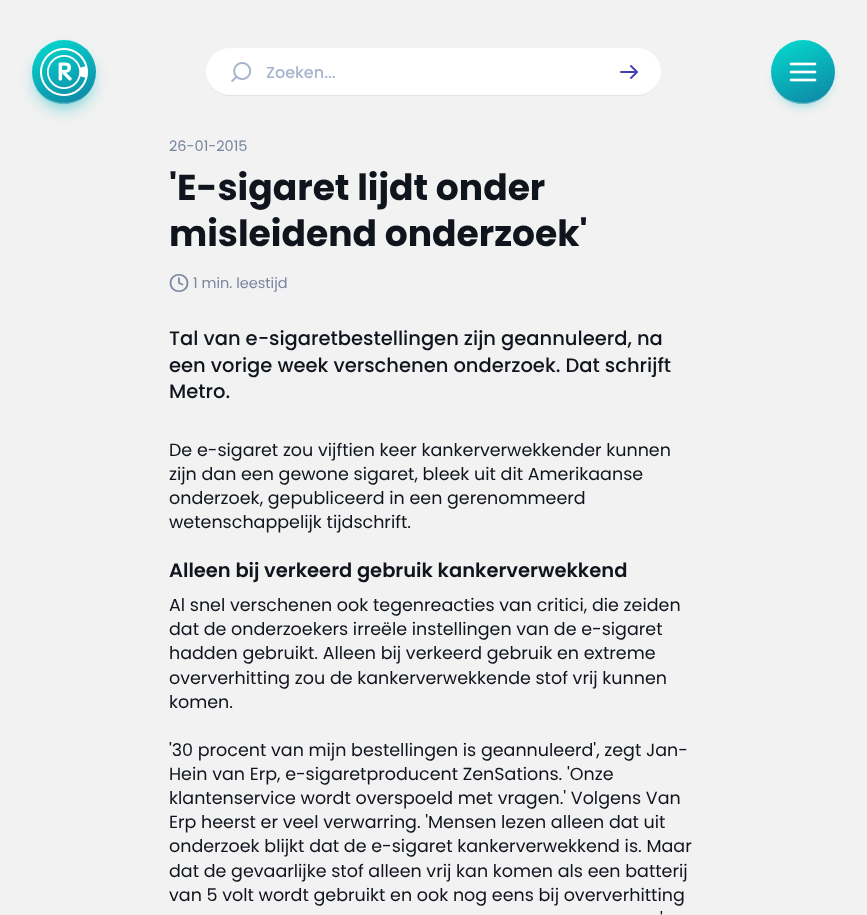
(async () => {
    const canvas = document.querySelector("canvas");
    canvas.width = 867;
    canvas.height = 915;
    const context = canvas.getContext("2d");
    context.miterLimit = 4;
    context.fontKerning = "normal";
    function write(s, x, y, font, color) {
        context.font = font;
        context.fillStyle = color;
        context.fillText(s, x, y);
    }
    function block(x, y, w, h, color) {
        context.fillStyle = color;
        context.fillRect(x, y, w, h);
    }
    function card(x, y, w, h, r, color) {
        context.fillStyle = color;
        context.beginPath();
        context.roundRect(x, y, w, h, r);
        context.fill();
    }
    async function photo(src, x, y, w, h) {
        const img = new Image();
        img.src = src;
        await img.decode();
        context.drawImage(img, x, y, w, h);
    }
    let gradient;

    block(0, 0, 867, 915, "rgb(242, 242, 242)");
    context.fillStyle = "rgba(32, 190, 199, 0.6)";
    context.filter = "blur(8px)";
    context.beginPath();
    context.roundRect(36, 52, 56, 56, 28);
    context.fill();
    context.filter = "none";
    gradient = context.createLinearGradient(47, 33, 81, 111);
    gradient.addColorStop(0, "rgb(4, 221, 207)");
    gradient.addColorStop(0.97, "rgb(15, 132, 164)");
    context.fillStyle = gradient;
    context.beginPath();
    context.arc(64, 72, 32, 0, Math.PI * 2);
    context.fill();
    context.fillStyle = "rgb(111, 185, 197)";
    context.beginPath();
    context.moveTo(32, 72);
    context.bezierCurveTo(32, 78, 34, 84, 37, 90);
    context.bezierCurveTo(55, 116, 96, 103, 96, 72);
    context.bezierCurveTo(95, 113, 33, 113, 32, 72);
    context.closePath();
    context.fill();
    await photo("media/1.png", 40, 48, 48, 48);
    card(206, 48, 455, 48, 24, "rgb(255, 255, 255)");
    context.fillStyle = "rgba(16, 24, 40, 0.12)";
    context.beginPath();
    context.moveTo(206, 71);
    context.bezierCurveTo(206, 85, 217, 96, 230, 96);
    context.lineTo(637, 96);
    context.bezierCurveTo(650, 96, 661, 85, 661, 71);
    context.bezierCurveTo(661, 84, 650, 95, 637, 95);
    context.lineTo(230, 95);
    context.bezierCurveTo(217, 95, 206, 84, 206, 71);
    context.closePath();
    context.fill();
    await photo("media/2.png", 231, 62, 21, 20);
    write("Zoeken...", 266, 78, "500 16px Poppins", "rgb(169, 181, 205)");
    await photo("media/3.png", 620, 65, 18, 14);
    context.fillStyle = "rgba(32, 190, 199, 0.6)";
    context.filter = "blur(6px)";
    context.beginPath();
    context.roundRect(777, 52, 52, 52, 26);
    context.fill();
    context.filter = "none";
    gradient = context.createLinearGradient(786, 33, 820, 111);
    gradient.addColorStop(0, "rgb(4, 221, 207)");
    gradient.addColorStop(0.97, "rgb(15, 132, 164)");
    context.fillStyle = gradient;
    context.beginPath();
    context.arc(803, 72, 32, 0, Math.PI * 2);
    context.fill();
    context.fillStyle = "rgb(111, 185, 197)";
    context.beginPath();
    context.moveTo(771, 72);
    context.bezierCurveTo(771, 78, 773, 84, 776, 90);
    context.bezierCurveTo(794, 116, 835, 103, 835, 72);
    context.bezierCurveTo(834, 113, 772, 113, 771, 72);
    context.closePath();
    context.fill();
    await photo("media/4.png", 789, 62, 28, 20);
    write("26-01-2015", 169, 151, "14.5px Poppins", "rgb(121, 134, 160)");
    write("'E-sigaret lijdt onder", 169, 200, "bold 36.1px Poppins", "rgb(16, 20, 28)");
    write("misleidend onderzoek'", 169, 246, "bold 36.1px Poppins", "rgb(16, 20, 28)");
    context.beginPath();
    context.moveTo(179, 278);
    context.lineTo(179, 283);
    context.lineTo(182.5, 284.5);
    context.moveTo(187.5, 283);
    context.bezierCurveTo(187.5, 294, 170.5, 294, 170.5, 283);
    context.bezierCurveTo(170.5, 272, 187.5, 272, 187.5, 283);
    context.closePath();
    context.strokeStyle = "rgb(121, 134, 160)";
    context.lineWidth = 1.7;
    context.lineCap = "round";
    context.lineJoin = "round";
    context.stroke();
    write("1 min. leestijd", 193, 288, "14.5px Poppins", "rgb(121, 134, 160)");
    write("Tal van e-sigaretbestellingen zijn geannuleerd, na", 169, 345, "500 19.5px Poppins", "rgb(16, 20, 28)");
    write("een vorige week verschenen onderzoek. Dat schrijft", 169, 372, "500 19.5px Poppins", "rgb(16, 20, 28)");
    write("Metro.", 169, 398, "500 19.5px Poppins", "rgb(16, 20, 28)");
    write("De e-sigaret zou vijftien keer kankerverwekkender kunnen", 169, 456, "17.5px Poppins", "rgb(16, 20, 28)");
    write("zijn dan een gewone sigaret, bleek uit dit Amerikaanse", 169, 480, "17.5px Poppins", "rgb(16, 20, 28)");
    write("onderzoek, gepubliceerd in een gerenommeerd", 169, 504, "17.5px Poppins", "rgb(16, 20, 28)");
    write("wetenschappelijk tijdschrift.", 169, 528, "17.5px Poppins", "rgb(16, 20, 28)");
    write("Alleen bij verkeerd gebruik kankerverwekkend", 169, 577, "600 19.5px Poppins", "rgb(16, 20, 28)");
    write("Al snel verschenen ook tegenreacties van critici, die zeiden", 169, 611, "17.5px Poppins", "rgb(16, 20, 28)");
    write("dat de onderzoekers irreële instellingen van de e-sigaret", 169, 635, "17.5px Poppins", "rgb(16, 20, 28)");
    write("hadden gebruikt. Alleen bij verkeerd gebruik en extreme", 169, 659, "17.5px Poppins", "rgb(16, 20, 28)");
    write("oververhitting zou de kankerverwekkende stof vrij kunnen", 169, 684, "17.5px Poppins", "rgb(16, 20, 28)");
    write("komen.", 169, 708, "17.5px Poppins", "rgb(16, 20, 28)");
    write("'30 procent van mijn bestellingen is geannuleerd', zegt Jan-", 169, 756, "17.5px Poppins", "rgb(16, 20, 28)");
    write("Hein van Erp, e-sigaretproducent ZenSations. 'Onze", 169, 780, "17.5px Poppins", "rgb(16, 20, 28)");
    write("klantenservice wordt overspoeld met vragen.' Volgens Van", 169, 804, "17.5px Poppins", "rgb(16, 20, 28)");
    write("Erp heerst er veel verwarring. 'Mensen lezen alleen dat uit", 169, 828, "17.5px Poppins", "rgb(16, 20, 28)");
    write("onderzoek blijkt dat de e-sigaret kankerverwekkend is. Maar", 169, 852, "17.5px Poppins", "rgb(16, 20, 28)");
    write("dat de gevaarlijke stof alleen vrij kan komen als een batterij", 169, 877, "17.5px Poppins", "rgb(16, 20, 28)");
    write("van 5 volt wordt gebruikt en ook nog eens bij oververhitting", 169, 901, "17.5px Poppins", "rgb(16, 20, 28)");
    write("'", 660, 925, "17.5px Poppins", "rgb(16, 20, 28)");
})();
